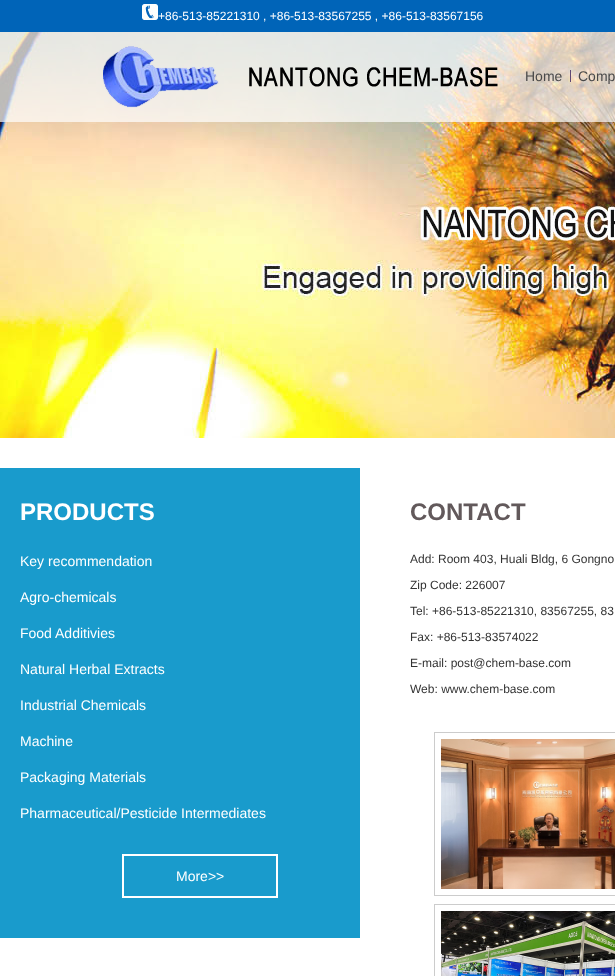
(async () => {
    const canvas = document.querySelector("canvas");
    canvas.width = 615;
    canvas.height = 976;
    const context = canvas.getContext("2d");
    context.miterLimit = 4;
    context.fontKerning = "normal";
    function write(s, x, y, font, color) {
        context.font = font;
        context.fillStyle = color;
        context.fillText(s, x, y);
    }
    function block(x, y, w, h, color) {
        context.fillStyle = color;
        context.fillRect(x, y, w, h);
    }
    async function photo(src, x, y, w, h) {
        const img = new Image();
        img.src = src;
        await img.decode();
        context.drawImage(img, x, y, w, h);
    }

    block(0, 0, 615, 976, "rgb(255, 255, 255)");
    block(0, 0, 615, 32, "rgb(0, 100, 184)");
    await photo("media/1.png", 142, 4, 16, 16);
    write("+86-513-85221310 , +86-513-83567255 , +86-513-83567156", 158, 20, "12px Liberation Sans", "rgb(255, 255, 255)");
    await photo("media/3.png", 0, 32, 615, 406);
    block(0, 32, 615, 90, "rgba(255, 255, 255, 0.7)");
    await photo("media/2.png", 103, 46, 395, 62);
    write("Home", 525, 81, "14px Liberation Sans", "rgb(73, 73, 73)");
    block(570, 70, 1, 12, "rgb(95, 72, 116)");
    write("Comp", 578, 81, "14px Liberation Sans", "rgb(73, 73, 73)");
    block(0, 468, 360, 470, "rgb(25, 155, 204)");
    write("PRODUCTS", 20, 520, "bold 24px Liberation Sans", "rgb(255, 255, 255)");
    write("Key recommendation", 20, 566, "14px Liberation Sans", "rgb(255, 255, 255)");
    write("Agro-chemicals", 20, 602, "14px Liberation Sans", "rgb(255, 255, 255)");
    write("Food Additivies", 20, 638, "14px Liberation Sans", "rgb(255, 255, 255)");
    write("Natural Herbal Extracts", 20, 674, "14px Liberation Sans", "rgb(255, 255, 255)");
    write("Industrial Chemicals", 20, 710, "14px Liberation Sans", "rgb(255, 255, 255)");
    write("Machine", 20, 746, "14px Liberation Sans", "rgb(255, 255, 255)");
    write("Packaging Materials", 20, 782, "14px Liberation Sans", "rgb(255, 255, 255)");
    write("Pharmaceutical/Pesticide Intermediates", 20, 818, "14px Liberation Sans", "rgb(255, 255, 255)");
    context.strokeStyle = "rgb(255, 255, 255)";
    context.lineWidth = 2;
    context.strokeRect(123, 855, 154, 42);
    write("More>>", 176, 881, "14px Liberation Sans", "rgb(255, 255, 255)");
    write("CONTACT", 410, 520, "bold 24px Liberation Sans", "rgb(98, 89, 91)");
    write("Add: Room 403, Huali Bldg, 6 Gongno", 410, 563, "12px Liberation Sans", "rgb(51, 51, 51)");
    write("Zip Code: 226007", 410, 589, "12px Liberation Sans", "rgb(51, 51, 51)");
    write("Tel: +86-513-85221310, 83567255, 83", 410, 615, "12px Liberation Sans", "rgb(51, 51, 51)");
    write("Fax: +86-513-83574022", 410, 641, "12px Liberation Sans", "rgb(51, 51, 51)");
    write("E-mail: post@chem-base.com", 410, 667, "12px Liberation Sans", "rgb(51, 51, 51)");
    write("Web: www.chem-base.com", 410, 693, "12px Liberation Sans", "rgb(51, 51, 51)");
    context.strokeStyle = "rgb(204, 204, 204)";
    context.lineWidth = 1;
    context.strokeRect(434.5, 732.5, 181, 163);
    await photo("media/4.png", 441, 739, 174, 150);
    context.strokeRect(434.5, 904.5, 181, 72);
    await photo("media/5.png", 441, 911, 174, 65);
})();
